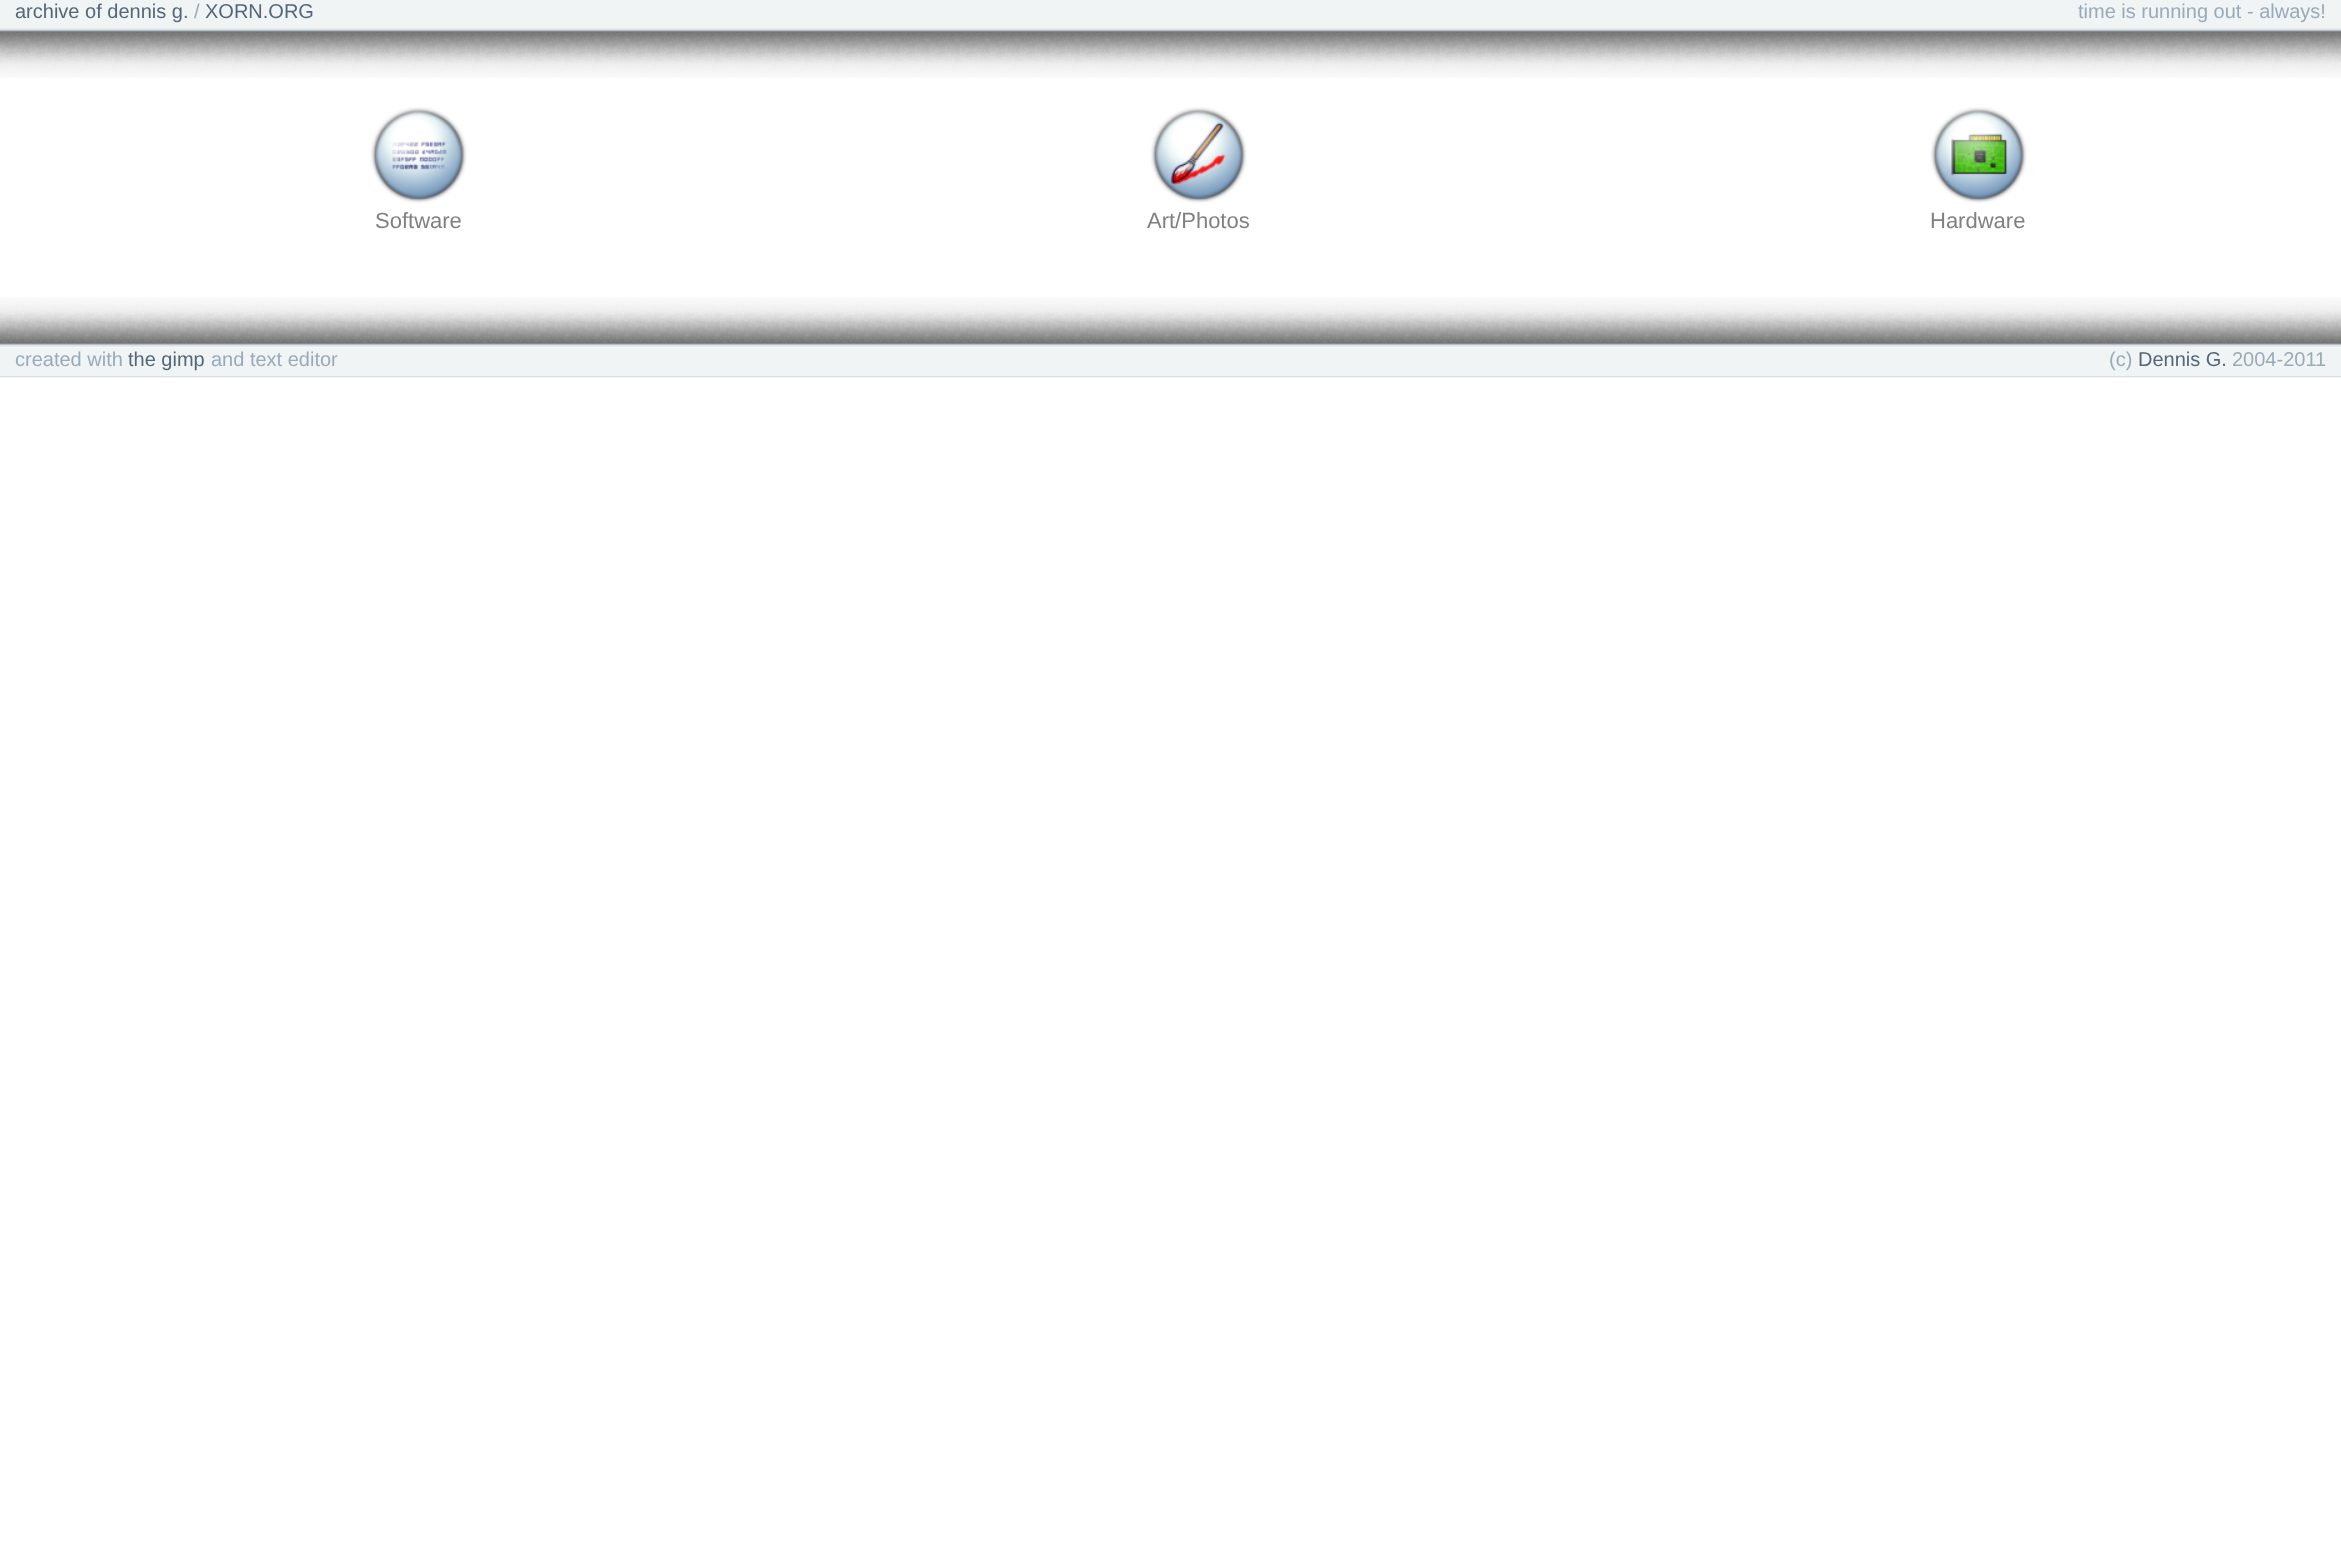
(async () => {
    const canvas = document.querySelector("canvas");
    canvas.width = 2341;
    canvas.height = 1542;
    const context = canvas.getContext("2d");
    context.miterLimit = 4;
    context.fontKerning = "normal";
    function write(s, x, y, font, color) {
        context.font = font;
        context.fillStyle = color;
        context.fillText(s, x, y);
    }
    function block(x, y, w, h, color) {
        context.fillStyle = color;
        context.fillRect(x, y, w, h);
    }
    async function photo(src, x, y, w, h) {
        const img = new Image();
        img.src = src;
        await img.decode();
        context.drawImage(img, x, y, w, h);
    }

    block(0, 0, 2341, 1542, "rgb(255, 255, 255)");
    block(0, 0, 2341, 28, "rgb(240, 244, 245)");
    write("archive of dennis g.", 15, 18, "20px Liberation Sans", "rgb(85, 102, 119)");
    write("/", 194, 18, "20px Liberation Sans", "rgb(153, 170, 187)");
    write("XORN.ORG", 205, 18, "20px Liberation Sans", "rgb(85, 102, 119)");
    write("time is running out - always!", 2078, 18, "20px Liberation Sans", "rgb(153, 170, 187)");
    await photo("media/1.png", 0, 28, 2341, 50);
    await photo("media/2.png", 370, 107, 97, 96);
    write("Software", 375, 228, "22px Liberation Sans", "rgb(128, 128, 128)");
    await photo("media/3.png", 1150, 107, 97, 96);
    write("Art/Photos", 1147, 228, "22px Liberation Sans", "rgb(128, 128, 128)");
    await photo("media/4.png", 1930, 107, 97, 96);
    write("Hardware", 1930, 228, "22px Liberation Sans", "rgb(128, 128, 128)");
    await photo("media/5.png", 0, 297, 2341, 51);
    block(0, 348, 2341, 30, "rgb(240, 244, 245)");
    block(0, 376, 2341, 1, "rgb(221, 221, 221)");
    write("created with", 15, 366, "20px Liberation Sans", "rgb(153, 170, 187)");
    write("the gimp", 128, 366, "20px Liberation Sans", "rgb(85, 102, 119)");
    write("and text editor", 211, 366, "20px Liberation Sans", "rgb(153, 170, 187)");
    write("(c)", 2109, 366, "20px Liberation Sans", "rgb(153, 170, 187)");
    write("Dennis G.", 2138, 366, "20px Liberation Sans", "rgb(85, 102, 119)");
    write("2004-2011", 2232, 366, "20px Liberation Sans", "rgb(153, 170, 187)");
})();
